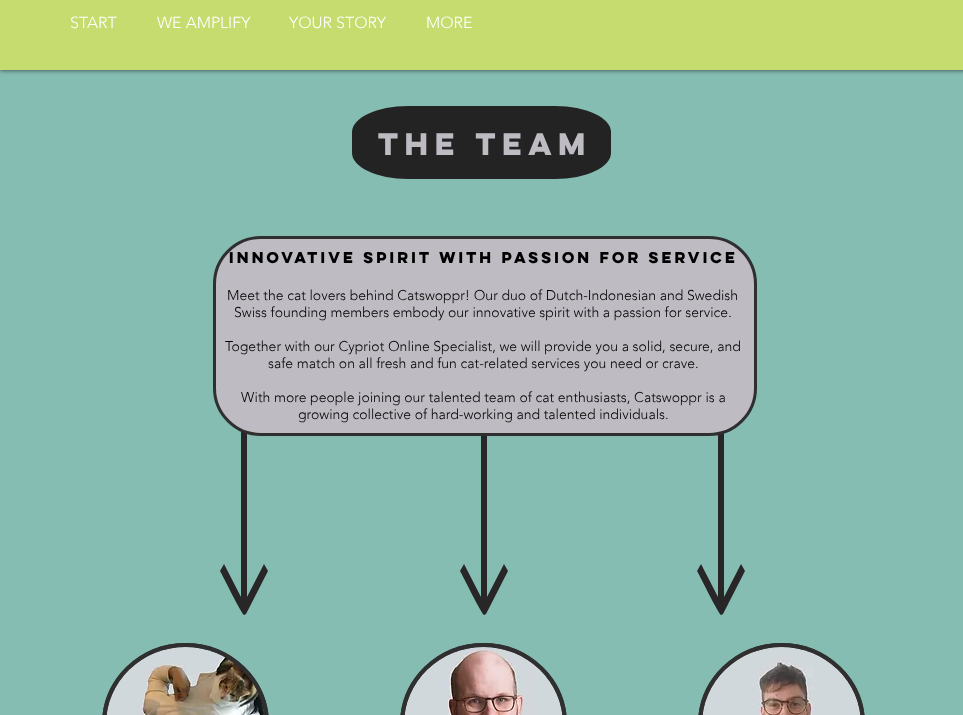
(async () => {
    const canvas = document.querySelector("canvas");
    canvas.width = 963;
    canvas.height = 715;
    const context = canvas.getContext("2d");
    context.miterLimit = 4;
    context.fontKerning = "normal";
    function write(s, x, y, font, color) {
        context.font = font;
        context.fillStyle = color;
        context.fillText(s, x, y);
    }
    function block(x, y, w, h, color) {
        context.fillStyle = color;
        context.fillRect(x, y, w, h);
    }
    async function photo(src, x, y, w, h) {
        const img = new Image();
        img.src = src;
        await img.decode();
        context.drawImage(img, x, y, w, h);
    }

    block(0, 0, 963, 715, "rgb(133, 189, 179)");
    context.fillStyle = "rgba(0, 0, 0, 0.7)";
    context.filter = "blur(2.5px)";
    context.beginPath();
    context.rect(0, 0, 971, 70);
    context.fill();
    context.filter = "none";
    block(0, 0, 963, 70, "rgb(198, 220, 111)");
    write("START", 70, 28, "300 16px 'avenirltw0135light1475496'", "rgb(255, 255, 255)");
    write("WE AMPLIFY", 157, 28, "300 16px 'avenirltw0135light1475496'", "rgb(255, 255, 255)");
    write("YOUR STORY", 289, 28, "300 16px 'avenirltw0135light1475496'", "rgb(255, 255, 255)");
    write("MORE", 426, 28, "300 16px 'avenirltw0135light1475496'", "rgb(255, 255, 255)");
    context.fillStyle = "rgb(36, 35, 35)";
    context.beginPath();
    context.moveTo(555, 179);
    context.lineTo(408, 179);
    context.bezierCurveTo(377, 179, 352, 167, 352, 153);
    context.lineTo(352, 132);
    context.bezierCurveTo(352, 118, 377, 106, 408, 106);
    context.lineTo(555, 106);
    context.bezierCurveTo(586, 106, 611, 118, 611, 132);
    context.lineTo(611, 153);
    context.bezierCurveTo(611, 167, 586, 179, 555, 179);
    context.closePath();
    context.fill();
    context.letterSpacing = "0.25px";
    write("The team", 378, 155, "bold 28px 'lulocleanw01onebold'", "rgb(190, 188, 194)");
    context.fillStyle = "rgb(40, 38, 38)";
    context.beginPath();
    context.moveTo(220, 571);
    context.bezierCurveTo(223, 576, 242, 615, 244, 615);
    context.bezierCurveTo(245, 615, 245, 614, 246, 614);
    context.lineTo(268, 571);
    context.lineTo(264, 564);
    context.lineTo(247, 597);
    context.lineTo(247, 430);
    context.lineTo(241, 430);
    context.lineTo(241, 597);
    context.lineTo(224, 564);
    context.closePath();
    context.fill();
    context.beginPath();
    context.moveTo(460, 571);
    context.bezierCurveTo(463, 576, 482, 615, 484, 615);
    context.bezierCurveTo(485, 615, 485, 614, 486, 614);
    context.lineTo(508, 571);
    context.lineTo(504, 564);
    context.lineTo(487, 597);
    context.lineTo(487, 430);
    context.lineTo(481, 430);
    context.lineTo(481, 597);
    context.lineTo(464, 564);
    context.closePath();
    context.fill();
    context.beginPath();
    context.moveTo(697, 571);
    context.bezierCurveTo(700, 576, 719, 615, 721, 615);
    context.bezierCurveTo(722, 615, 722, 614, 723, 614);
    context.lineTo(745, 571);
    context.lineTo(741, 564);
    context.lineTo(724, 597);
    context.lineTo(724, 430);
    context.lineTo(718, 430);
    context.lineTo(718, 597);
    context.lineTo(701, 564);
    context.closePath();
    context.fill();
    context.fillStyle = "rgb(190, 188, 194)";
    context.beginPath();
    context.roundRect(214.5, 237.5, 541, 197, 46.5);
    context.fill();
    context.strokeStyle = "rgb(47, 47, 48)";
    context.lineWidth = 3;
    context.stroke();
    context.letterSpacing = "0px";
    write("innovative spirit with passion for service", 229, 263, "bold 14px 'lulocleanw01onebold'", "rgb(0, 0, 0)");
    write("Meet the cat lovers behind Catswoppr! Our duo of Dutch-Indonesian and Swedish", 227, 300, "300 14px 'avenirltw0135light1475496'", "rgb(0, 0, 0)");
    write("Swiss founding members embody our innovative spirit with a passion for service.", 234, 317, "300 14px 'avenirltw0135light1475496'", "rgb(0, 0, 0)");
    write("Together with our Cypriot Online Specialist, we will provide you a solid, secure, and", 225, 351, "300 14px 'avenirltw0135light1475496'", "rgb(0, 0, 0)");
    write("safe match on all fresh and fun cat-related services you need or crave.", 268, 368, "300 14px 'avenirltw0135light1475496'", "rgb(0, 0, 0)");
    write("With more people joining our talented team of cat enthusiasts, Catswoppr is a", 241, 402, "300 14px 'avenirltw0135light1475496'", "rgb(0, 0, 0)");
    write("growing collective of hard-working and talented individuals.", 298, 419, "300 14px 'avenirltw0135light1475496'", "rgb(0, 0, 0)");
    context.fillStyle = "rgb(47, 47, 48)";
    context.beginPath();
    context.ellipse(185.5, 724, 83.5, 81, 0, 0, Math.PI * 2);
    context.fill();
    context.beginPath();
    context.moveTo(185.5, 645);
    context.bezierCurveTo(230.5, 645, 267, 680.5, 267, 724);
    context.bezierCurveTo(267, 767.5, 230.5, 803, 185.5, 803);
    context.bezierCurveTo(140.5, 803, 104, 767.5, 104, 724);
    context.bezierCurveTo(104, 680.5, 140.5, 645, 185.5, 645);
    context.closePath();
    context.lineWidth = 4;
    context.stroke();
    await photo("media/1.png", 106, 647, 158, 68);
    context.beginPath();
    context.ellipse(483.5, 724, 83.5, 81, 0, 0, Math.PI * 2);
    context.fill();
    context.beginPath();
    context.moveTo(483.5, 645);
    context.bezierCurveTo(528.5, 645, 565, 680.5, 565, 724);
    context.bezierCurveTo(565, 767.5, 528.5, 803, 483.5, 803);
    context.bezierCurveTo(438.5, 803, 402, 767.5, 402, 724);
    context.bezierCurveTo(402, 680.5, 438.5, 645, 483.5, 645);
    context.closePath();
    context.stroke();
    await photo("media/2.png", 404, 647, 159, 68);
    context.beginPath();
    context.ellipse(781.5, 724, 83.5, 81, 0, 0, Math.PI * 2);
    context.fill();
    context.beginPath();
    context.moveTo(781.5, 645);
    context.bezierCurveTo(826.5, 645, 863, 680.5, 863, 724);
    context.bezierCurveTo(863, 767.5, 826.5, 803, 781.5, 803);
    context.bezierCurveTo(736.5, 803, 700, 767.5, 700, 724);
    context.bezierCurveTo(700, 680.5, 736.5, 645, 781.5, 645);
    context.closePath();
    context.stroke();
    await photo("media/3.png", 702, 647, 159, 68);
})();
